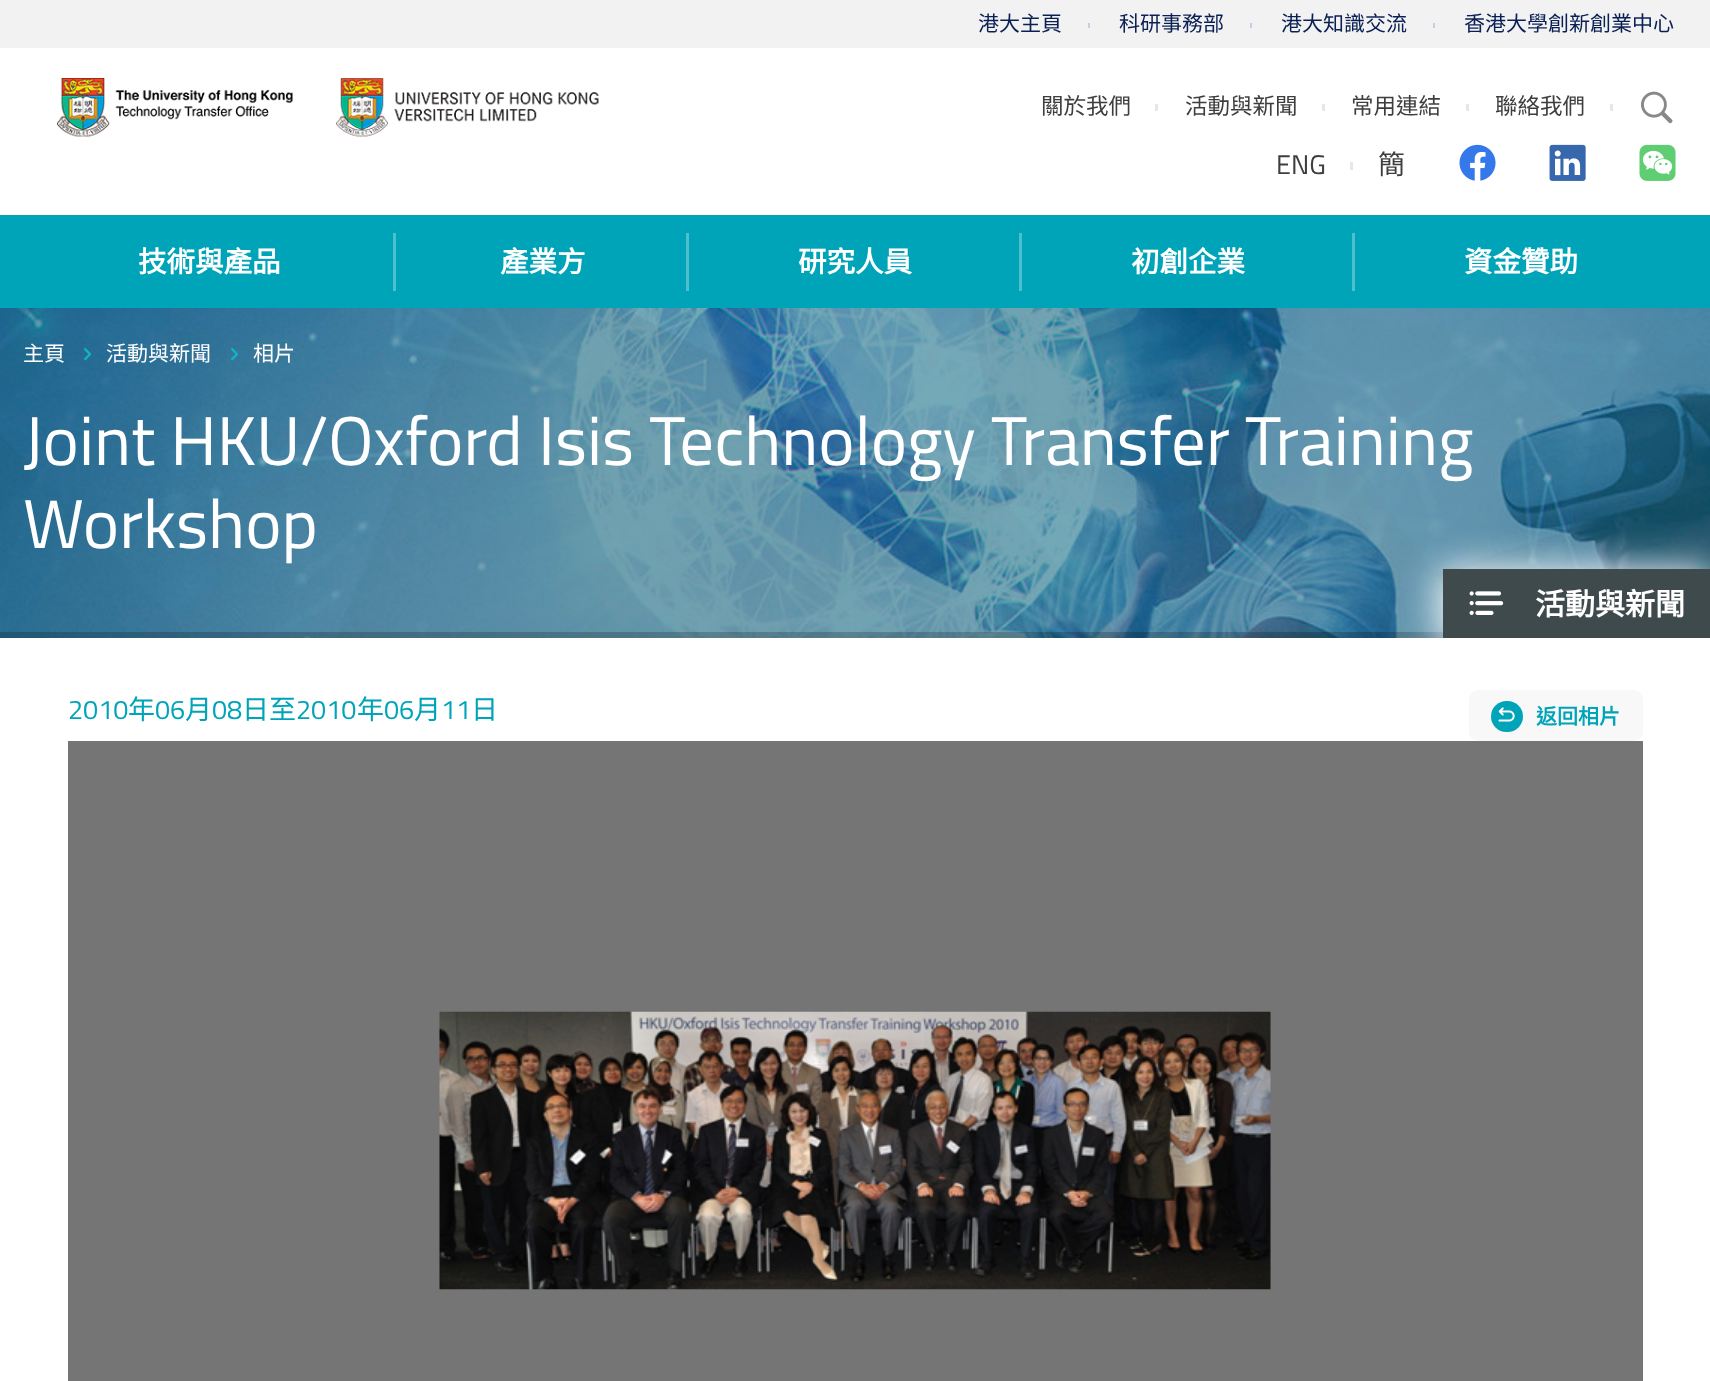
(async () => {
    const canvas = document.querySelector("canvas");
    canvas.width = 1710;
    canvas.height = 1381;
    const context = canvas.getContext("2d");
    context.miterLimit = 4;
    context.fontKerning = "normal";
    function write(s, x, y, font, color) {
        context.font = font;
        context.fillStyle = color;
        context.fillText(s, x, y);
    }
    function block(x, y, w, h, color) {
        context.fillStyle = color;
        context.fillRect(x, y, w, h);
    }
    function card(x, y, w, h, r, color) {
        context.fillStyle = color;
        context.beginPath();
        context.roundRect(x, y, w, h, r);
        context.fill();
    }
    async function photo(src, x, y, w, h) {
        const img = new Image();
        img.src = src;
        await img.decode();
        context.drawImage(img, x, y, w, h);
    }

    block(0, 0, 1710, 1381, "rgb(255, 255, 255)");
    block(0, 0, 1710, 48, "rgb(242, 242, 242)");
    write("港大主頁", 978, 31, "21px Noto Sans CJK HK", "rgb(10, 31, 83)");
    block(1088, 23, 2, 5, "rgb(196, 207, 225)");
    write("科研事務部", 1119, 31, "21px Noto Sans CJK HK", "rgb(10, 31, 83)");
    block(1250, 23, 2, 5, "rgb(196, 207, 225)");
    write("港大知識交流", 1281, 31, "21px Noto Sans CJK HK", "rgb(10, 31, 83)");
    block(1433, 23, 2, 5, "rgb(196, 207, 225)");
    write("香港大學創新創業中心", 1464, 31, "21px Noto Sans CJK HK", "rgb(10, 31, 83)");
    await photo("media/1.png", 57, 78, 236, 59);
    await photo("media/2.png", 336, 78, 263, 59);
    write("關於我們", 1041, 114, "22.5px Noto Sans CJK HK", "rgb(62, 62, 62)");
    block(1155, 104, 3, 7, "rgb(231, 231, 231)");
    write("活動與新聞", 1185, 114, "22.5px Noto Sans CJK HK", "rgb(62, 62, 62)");
    block(1322, 104, 3, 7, "rgb(231, 231, 231)");
    write("常用連結", 1351, 114, "22.5px Noto Sans CJK HK", "rgb(62, 62, 62)");
    block(1466, 104, 3, 7, "rgb(231, 231, 231)");
    write("聯絡我們", 1495, 114, "22.5px Noto Sans CJK HK", "rgb(62, 62, 62)");
    block(1610, 104, 3, 7, "rgb(231, 231, 231)");
    write("ENG", 1276, 174, "27px Titillium Web", "rgb(62, 62, 62)");
    block(1350, 162, 3, 8, "rgb(231, 231, 231)");
    write("簡", 1378, 174, "27px Noto Sans CJK SC", "rgb(62, 62, 62)");
    await photo("media/3.png", 1459, 144, 37, 37);
    await photo("media/4.png", 1549, 144, 37, 37);
    await photo("media/5.png", 1639, 144, 37, 37);
    await photo("media/6.png", 1641, 91, 32, 33);
    block(0, 215, 1710, 93, "rgb(0, 164, 184)");
    write("技術與產品", 138, 272, "bold 28.5px Noto Sans CJK HK", "rgb(255, 255, 255)");
    block(393, 233, 3, 58, "rgb(77, 191, 205)");
    write("產業方", 500, 272, "bold 28.5px Noto Sans CJK HK", "rgb(255, 255, 255)");
    block(686, 233, 3, 58, "rgb(77, 191, 205)");
    write("研究人員", 798, 272, "bold 28.5px Noto Sans CJK HK", "rgb(255, 255, 255)");
    block(1019, 233, 3, 58, "rgb(77, 191, 205)");
    write("初創企業", 1131, 272, "bold 28.5px Noto Sans CJK HK", "rgb(255, 255, 255)");
    block(1352, 233, 3, 58, "rgb(77, 191, 205)");
    write("資金贊助", 1464, 272, "bold 28.5px Noto Sans CJK HK", "rgb(255, 255, 255)");
    await photo("media/7.png", 0, 308, 1710, 330);
    write("主頁", 23, 361, "21px Noto Sans CJK HK", "rgb(255, 255, 255)");
    await photo("media/8.png", 84, 348, 8, 13);
    write("活動與新聞", 106, 361, "21px Noto Sans CJK HK", "rgb(255, 255, 255)");
    await photo("media/9.png", 231, 348, 7, 13);
    write("相片", 253, 361, "21px Noto Sans CJK HK", "rgb(255, 255, 255)");
    write("Joint HKU/Oxford Isis Technology Transfer Training", 23, 465, "69px Titillium Web", "rgb(255, 255, 255)");
    write("Workshop", 23, 548, "69px Titillium Web", "rgb(255, 255, 255)");
    block(0, 632, 1443, 6, "rgba(0, 0, 0, 0.2)");
    card(1469, 690, 174, 51, 9, "rgb(248, 248, 248)");
    card(1491, 701, 32, 31, 15.5, "rgb(0, 164, 184)");
    context.fillStyle = "rgb(255, 255, 255)";
    context.filter = "blur(19px)";
    context.beginPath();
    context.rect(1439, 569, 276, 78);
    context.fill();
    context.filter = "none";
    block(1443, 569, 267, 69, "rgb(63, 74, 76)");
    await photo("media/10.png", 1469, 591, 35, 24);
    write("活動與新聞", 1535, 615, "bold 30px Noto Sans CJK HK", "rgb(255, 255, 255)");
    write("2010", 68, 719, "27px Titillium Web", "rgb(0, 164, 184)");
    write("年", 128, 719, "27px Noto Sans CJK HK", "rgb(0, 164, 184)");
    write("06", 155, 719, "27px Titillium Web", "rgb(0, 164, 184)");
    write("月", 185, 719, "27px Noto Sans CJK HK", "rgb(0, 164, 184)");
    write("08", 212, 719, "27px Titillium Web", "rgb(0, 164, 184)");
    write("日至", 242, 719, "27px Noto Sans CJK HK", "rgb(0, 164, 184)");
    write("2010", 296, 719, "27px Titillium Web", "rgb(0, 164, 184)");
    write("年", 357, 719, "27px Noto Sans CJK HK", "rgb(0, 164, 184)");
    write("06", 384, 719, "27px Titillium Web", "rgb(0, 164, 184)");
    write("月", 414, 719, "27px Noto Sans CJK HK", "rgb(0, 164, 184)");
    write("11", 441, 719, "27px Titillium Web", "rgb(0, 164, 184)");
    write("日", 471, 719, "27px Noto Sans CJK HK", "rgb(0, 164, 184)");
    await photo("media/11.png", 1498, 707, 17, 15);
    write("返回相片", 1536, 724, "bold 21px Noto Sans CJK HK", "rgb(0, 164, 184)");
    block(68, 741, 1575, 640, "rgb(117, 117, 117)");
    await photo("media/12.png", 439, 1011, 832, 279);
})();
